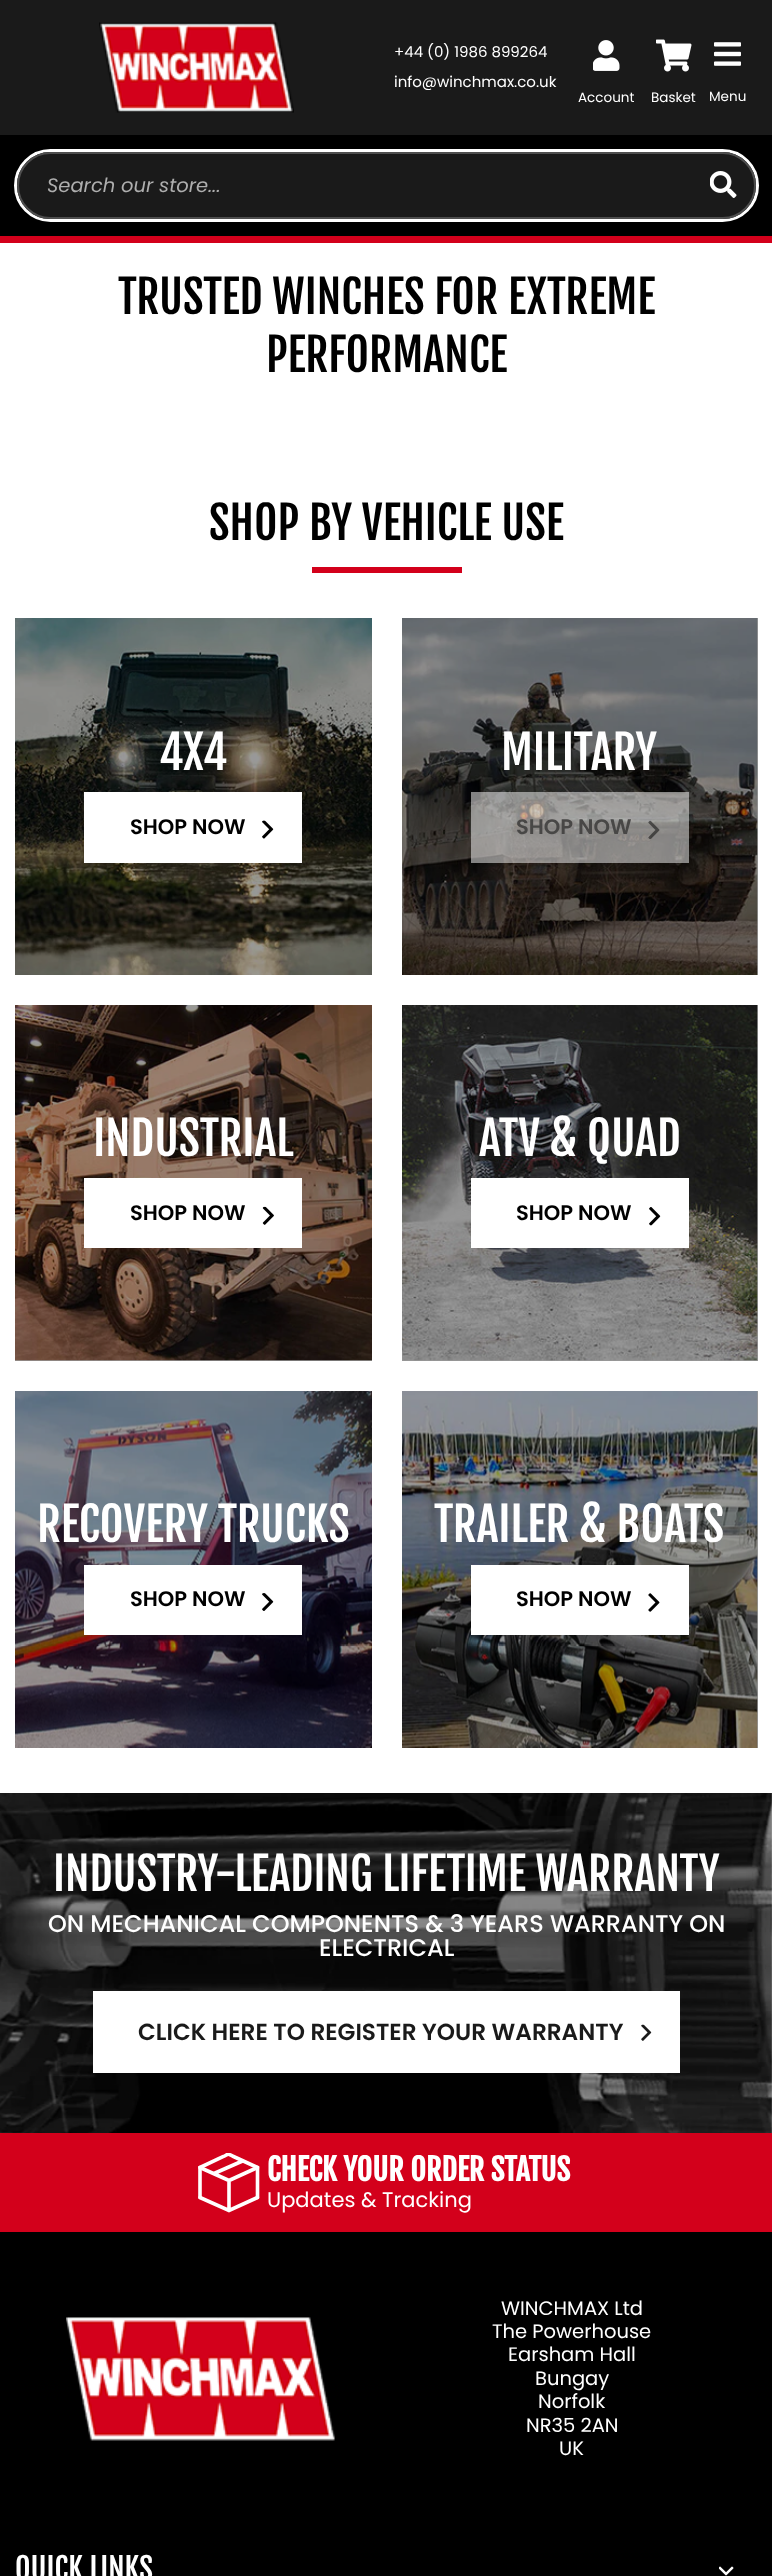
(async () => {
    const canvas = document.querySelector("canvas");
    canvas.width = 772;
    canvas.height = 2576;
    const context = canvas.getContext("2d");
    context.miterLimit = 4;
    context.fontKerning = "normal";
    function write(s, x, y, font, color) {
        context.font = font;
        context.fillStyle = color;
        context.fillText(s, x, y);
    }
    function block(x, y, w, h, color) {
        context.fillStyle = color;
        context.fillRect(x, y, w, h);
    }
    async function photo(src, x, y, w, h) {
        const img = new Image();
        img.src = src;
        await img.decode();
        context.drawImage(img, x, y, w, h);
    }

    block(0, 0, 772, 2576, "rgb(255, 255, 255)");
    block(757, 1391, 1, 357, "rgb(153, 153, 153)");
    block(402, 1005, 356, 356, "rgb(153, 153, 153)");
    block(15, 1360, 357, 1, "rgb(153, 153, 153)");
    block(757, 618, 1, 357, "rgb(153, 153, 153)");
    block(0, 135, 772, 101, "rgb(0, 0, 0)");
    block(0, 236, 772, 7, "rgb(211, 0, 27)");
    block(0, 0, 772, 135, "rgb(26, 26, 26)");
    await photo("media/1.png", 99, 22, 195, 91);
    write("+44 (0) 1986 899264", 394, 57, "15px Poppins", "rgb(255, 255, 255)");
    write("info@winchmax.co.uk", 394, 87, "15px Poppins", "rgb(255, 255, 255)");
    await photo("media/2.png", 593, 40, 27, 31);
    write("Account", 578, 102, "13.5px Poppins", "rgb(255, 255, 255)");
    await photo("media/3.png", 656, 39, 36, 33);
    write("Basket", 651, 102, "13.5px Poppins", "rgb(255, 255, 255)");
    await photo("media/4.png", 714, 42, 27, 24);
    write("Menu", 709, 101, "13.5px Poppins", "rgb(255, 255, 255)");
    context.beginPath();
    context.roundRect(15.5, 150.5, 742, 70, 35);
    context.strokeStyle = "rgb(255, 255, 255)";
    context.lineWidth = 3;
    context.stroke();
    context.fillStyle = "rgb(26, 26, 26)";
    context.beginPath();
    context.roundRect(18, 153, 737, 65, 32.5);
    context.fill();
    context.strokeStyle = "rgb(78, 78, 78)";
    context.lineWidth = 2;
    context.stroke();
    write("Search our store...", 47, 192, "italic 19.5px Poppins", "rgb(174, 174, 174)");
    await photo("media/5.png", 710, 171, 27, 27);
    write("TRUSTED WINCHES FOR EXTREME", 118, 314, "45px Fjalla One", "rgb(0, 0, 0)");
    write("PERFORMANCE", 266, 372, "45px Fjalla One", "rgb(0, 0, 0)");
    write("SHOP BY VEHICLE USE", 209, 540, "45px Fjalla One", "rgb(0, 0, 0)");
    block(312, 567, 150, 6, "rgb(211, 0, 27)");
    await photo("media/6.png", 15, 618, 357, 357);
    write("4X4", 159, 770, "46.25px Fjalla One", "rgb(255, 255, 255)");
    block(84, 792, 218, 71, "rgb(255, 255, 255)");
    write("SHOP NOW", 130, 834, "600 21px Poppins", "rgb(0, 0, 0)");
    await photo("media/7.png", 262, 820, 12, 19);
    await photo("media/8.png", 402, 618, 356, 357);
    write("MILITARY", 501, 770, "46.25px Fjalla One", "rgb(255, 255, 255)");
    block(471, 792, 218, 71, "rgba(255, 255, 255, 0.5)");
    write("SHOP NOW", 516, 834, "600 21px Poppins", "rgb(72, 71, 70)");
    await photo("media/9.png", 648, 820, 12, 20);
    await photo("media/10.png", 15, 1005, 357, 356);
    write("INDUSTRIAL", 93, 1156, "46.25px Fjalla One", "rgb(255, 255, 255)");
    block(84, 1178, 218, 70, "rgb(255, 255, 255)");
    write("SHOP NOW", 130, 1220, "600 21px Poppins", "rgb(0, 0, 0)");
    await photo("media/11.png", 262, 1206, 12, 19);
    await photo("media/12.png", 402, 1005, 356, 356);
    write("ATV & QUAD", 479, 1156, "46.25px Fjalla One", "rgb(255, 255, 255)");
    block(471, 1178, 218, 70, "rgb(255, 255, 255)");
    write("SHOP NOW", 516, 1220, "600 21px Poppins", "rgb(0, 0, 0)");
    await photo("media/13.png", 649, 1207, 12, 19);
    await photo("media/14.png", 15, 1391, 357, 357);
    write("RECOVERY TRUCKS", 37, 1542, "46.25px Fjalla One", "rgb(255, 255, 255)");
    block(84, 1565, 218, 70, "rgb(255, 255, 255)");
    write("SHOP NOW", 130, 1606, "600 21px Poppins", "rgb(0, 0, 0)");
    await photo("media/15.png", 262, 1593, 12, 18);
    await photo("media/16.png", 402, 1391, 356, 357);
    write("TRAILER & BOATS", 434, 1542, "46.25px Fjalla One", "rgb(255, 255, 255)");
    block(471, 1565, 218, 70, "rgb(255, 255, 255)");
    write("SHOP NOW", 516, 1606, "600 21px Poppins", "rgb(0, 0, 0)");
    await photo("media/17.png", 648, 1593, 12, 19);
    await photo("media/18.png", 0, 1793, 772, 340);
    write("INDUSTRY-LEADING LIFETIME WARRANTY", 53, 1891, "45px Fjalla One", "rgb(255, 255, 255)");
    write("ON MECHANICAL COMPONENTS & 3 YEARS WARRANTY ON", 48, 1932, "500 24px Poppins", "rgb(255, 255, 255)");
    write("ELECTRICAL", 319, 1956, "500 24px Poppins", "rgb(255, 255, 255)");
    block(93, 1991, 587, 82, "rgb(255, 255, 255)");
    write("CLICK HERE TO REGISTER YOUR WARRANTY", 138, 2040, "600 23.2px Poppins", "rgb(26, 26, 26)");
    await photo("media/19.png", 641, 2024, 11, 17);
    block(0, 2133, 772, 99, "rgb(211, 0, 27)");
    context.save();
    context.beginPath();
    context.rect(198, 2153, 62, 60);
    context.clip();
    context.beginPath();
    context.moveTo(257.5, 2197.5);
    context.lineTo(257.5, 2167.5);
    context.lineTo(233.5, 2156.5);
    context.bezierCurveTo(227, 2153.5, 229.5, 2153.5, 223.5, 2156.5);
    context.lineTo(200, 2167.5);
    context.lineTo(200, 2197.5);
    context.strokeStyle = "rgb(255, 255, 255)";
    context.lineWidth = 3.6;
    context.lineCap = "round";
    context.stroke();
    context.restore();
    context.beginPath();
    context.moveTo(200, 2167.5);
    context.lineTo(229, 2180.5);
    context.moveTo(257.5, 2197.5);
    context.lineTo(229, 2210.5);
    context.lineTo(200, 2197.5);
    context.moveTo(229, 2180.5);
    context.lineTo(257.5, 2167.5);
    context.moveTo(229, 2180.5);
    context.lineTo(229, 2210.5);
    context.moveTo(242.5, 2161);
    context.lineTo(214, 2173.5);
    context.strokeStyle = "rgb(255, 255, 255)";
    context.lineWidth = 3.6;
    context.lineCap = "round";
    context.stroke();
    write("CHECK YOUR ORDER STATUS", 267, 2181, "bold 30px Fjalla One", "rgb(255, 255, 255)");
    write("Updates & Tracking", 267, 2207, "21px Poppins", "rgb(255, 255, 255)");
    block(0, 2232, 772, 344, "rgb(0, 0, 0)");
    await photo("media/20.png", 66, 2317, 269, 124);
    write("WINCHMAX Ltd", 501, 2315, "19.5px Poppins", "rgb(255, 255, 255)");
    write("The Powerhouse", 492, 2338, "19.5px Poppins", "rgb(255, 255, 255)");
    write("Earsham Hall", 508, 2361, "19.5px Poppins", "rgb(255, 255, 255)");
    write("Bungay", 535, 2385, "19.5px Poppins", "rgb(255, 255, 255)");
    write("Norfolk", 538, 2408, "19.5px Poppins", "rgb(255, 255, 255)");
    write("NR35 2AN", 526, 2432, "19.5px Poppins", "rgb(255, 255, 255)");
    write("UK", 559, 2455, "19.5px Poppins", "rgb(255, 255, 255)");
    write("QUICK LINKS", 15, 2580, "30px Fjalla One", "rgb(255, 255, 255)");
    await photo("media/21.png", 719, 2566, 15, 10);
})();
